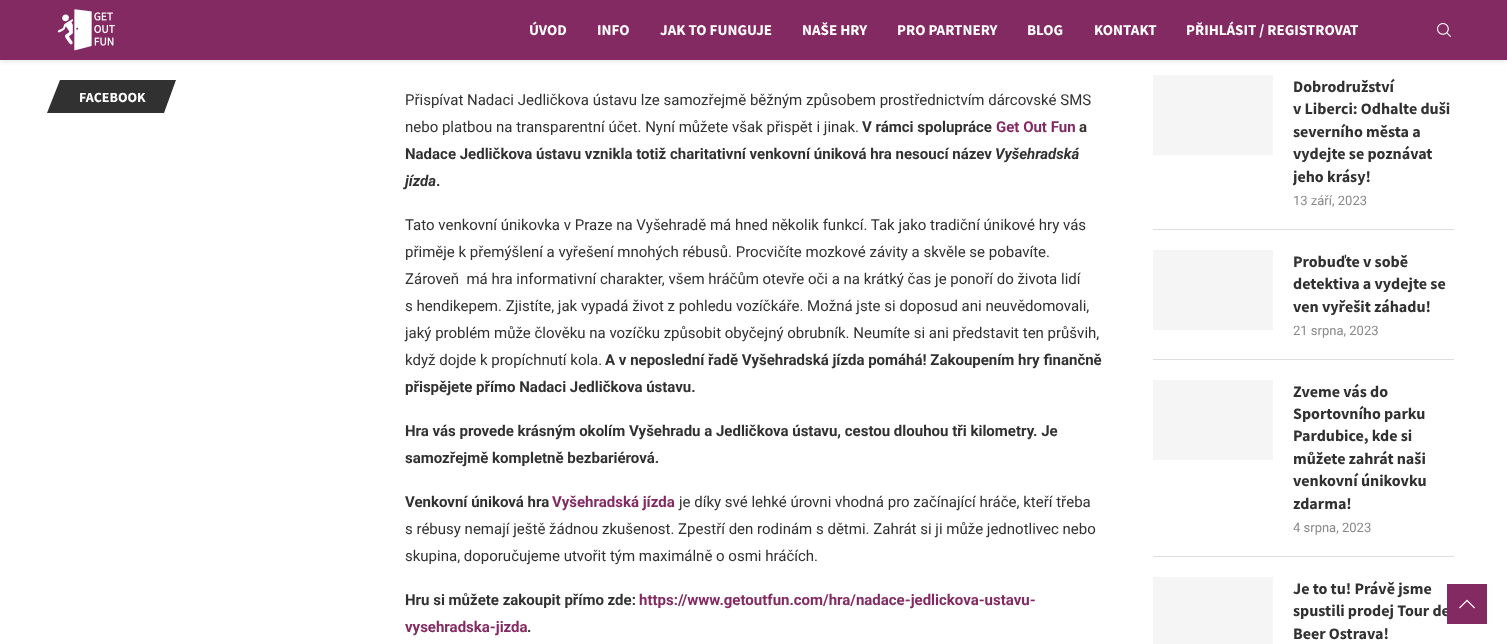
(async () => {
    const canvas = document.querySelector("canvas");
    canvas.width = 1507;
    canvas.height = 644;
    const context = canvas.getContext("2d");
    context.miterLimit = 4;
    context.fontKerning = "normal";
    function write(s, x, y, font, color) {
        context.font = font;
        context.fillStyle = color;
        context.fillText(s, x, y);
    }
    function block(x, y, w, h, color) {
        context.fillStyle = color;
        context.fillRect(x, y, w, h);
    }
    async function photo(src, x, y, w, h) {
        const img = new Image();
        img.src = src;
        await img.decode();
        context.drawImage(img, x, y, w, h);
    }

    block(0, 0, 1507, 644, "rgb(255, 255, 255)");
    context.fillStyle = "rgba(190, 190, 190, 0.46)";
    context.filter = "blur(2.5px)";
    context.beginPath();
    context.rect(0, 1, 1507, 60);
    context.fill();
    context.filter = "none";
    block(0, 0, 1507, 60, "rgb(132, 42, 99)");
    await photo("media/1.png", 57, 9, 58, 42);
    write("ÚVOD", 529, 35, "bold 15px Source Sans Pro", "rgb(255, 255, 255)");
    write("INFO", 597, 35, "bold 15px Source Sans Pro", "rgb(255, 255, 255)");
    write("JAK TO FUNGUJE", 660, 35, "bold 15px Source Sans Pro", "rgb(255, 255, 255)");
    write("NAŠE HRY", 802, 35, "bold 15px Source Sans Pro", "rgb(255, 255, 255)");
    write("PRO PARTNERY", 897, 35, "bold 15px Source Sans Pro", "rgb(255, 255, 255)");
    write("BLOG", 1027, 35, "bold 15px Source Sans Pro", "rgb(255, 255, 255)");
    write("KONTAKT", 1094, 35, "bold 15px Source Sans Pro", "rgb(255, 255, 255)");
    write("PŘIHLÁSIT / REGISTROVAT", 1186, 35, "bold 15px Source Sans Pro", "rgb(255, 255, 255)");
    await photo("media/2.png", 1437, 23, 14, 14);
    context.fillStyle = "rgb(49, 49, 49)";
    context.beginPath();
    context.moveTo(60, 80);
    context.lineTo(176, 80);
    context.lineTo(164, 113);
    context.lineTo(47, 113);
    context.closePath();
    context.fill();
    write("FACEBOOK", 79, 102, "bold 14px Source Sans Pro", "rgb(255, 255, 255)");
    write("Přispívat Nadaci Jedličkova ústavu lze samozřejmě běžným způsobem prostřednictvím dárcovské SMS", 405, 105, "15px Roboto", "rgb(49, 49, 49)");
    write("nebo platbou na transparentní účet. Nyní můžete však přispět i jinak.", 405, 132, "15px Roboto", "rgb(49, 49, 49)");
    write("V rámci spolupráce", 862, 132, "bold 15px Roboto", "rgb(49, 49, 49)");
    write("Get Out Fun", 996, 132, "bold 15px Roboto", "rgb(132, 42, 99)");
    write("a", 1079, 132, "bold 15px Roboto", "rgb(49, 49, 49)");
    write("Nadace Jedličkova ústavu vznikla totiž charitativní venkovní úniková hra nesoucí název", 405, 159, "bold 15px Roboto", "rgb(49, 49, 49)");
    write("Vyšehradská", 995, 159, "italic bold 15px Roboto", "rgb(49, 49, 49)");
    write("jízda", 405, 186, "italic bold 15px Roboto", "rgb(49, 49, 49)");
    write(".", 436, 186, "bold 15px Roboto", "rgb(49, 49, 49)");
    write("Tato venkovní únikovka v Praze na Vyšehradě má hned několik funkcí. Tak jako tradiční únikové hry vás", 405, 230, "15px Roboto", "rgb(49, 49, 49)");
    write("přiměje k přemýšlení a vyřešení mnohých rébusů. Procvičíte mozkové závity a skvěle se pobavíte.", 405, 257, "15px Roboto", "rgb(49, 49, 49)");
    write("Zároveň  má hra informativní charakter, všem hráčům otevře oči a na krátký čas je ponoří do života lidí", 405, 284, "15px Roboto", "rgb(49, 49, 49)");
    write("s hendikepem. Zjistíte, jak vypadá život z pohledu vozíčkáře. Možná jste si doposud ani neuvědomovali,", 405, 311, "15px Roboto", "rgb(49, 49, 49)");
    write("jaký problém může člověku na vozíčku způsobit obyčejný obrubník. Neumíte si ani představit ten průšvih,", 405, 338, "15px Roboto", "rgb(49, 49, 49)");
    write("když dojde k propíchnutí kola.", 405, 365, "15px Roboto", "rgb(49, 49, 49)");
    write("A v neposlední řadě Vyšehradská jízda pomáhá! Zakoupením hry finančně", 605, 365, "bold 15px Roboto", "rgb(49, 49, 49)");
    write("přispějete přímo Nadaci Jedličkova ústavu.", 405, 392, "bold 15px Roboto", "rgb(49, 49, 49)");
    write("Hra vás provede krásným okolím Vyšehradu a Jedličkova ústavu, cestou dlouhou tři kilometry. Je", 405, 436, "bold 15px Roboto", "rgb(49, 49, 49)");
    write("samozřejmě kompletně bezbariérová.", 405, 463, "bold 15px Roboto", "rgb(49, 49, 49)");
    write("Venkovní úniková hra", 405, 507, "bold 15px Roboto", "rgb(49, 49, 49)");
    write("Vyšehradská jízda", 552, 507, "bold 15px Roboto", "rgb(132, 42, 99)");
    write("je díky své lehké úrovni vhodná pro začínající hráče, kteří třeba", 679, 507, "15px Roboto", "rgb(49, 49, 49)");
    write("s rébusy nemají ještě žádnou zkušenost. Zpestří den rodinám s dětmi. Zahrát si ji může jednotlivec nebo", 405, 534, "15px Roboto", "rgb(49, 49, 49)");
    write("skupina, doporučujeme utvořit tým maximálně o osmi hráčích.", 405, 561, "15px Roboto", "rgb(49, 49, 49)");
    write("Hru si můžete zakoupit přímo zde:", 405, 605, "bold 15px Roboto", "rgb(49, 49, 49)");
    write("https://www.getoutfun.com/hra/nadace-jedlickova-ustavu-", 639, 605, "bold 15px Roboto", "rgb(132, 42, 99)");
    write("vysehradska-jizda", 405, 632, "bold 15px Roboto", "rgb(132, 42, 99)");
    write(".", 527, 632, "bold 15px Roboto", "rgb(49, 49, 49)");
    block(1153, 229, 301, 1, "rgb(222, 222, 222)");
    block(1153, 75, 120, 80, "rgb(245, 245, 245)");
    write("Dobrodružství", 1293, 92, "bold 16px Source Sans Pro", "rgb(49, 49, 49)");
    write("v Liberci: Odhalte duši", 1293, 114, "bold 16px Source Sans Pro", "rgb(49, 49, 49)");
    write("severního města a", 1293, 137, "bold 16px Source Sans Pro", "rgb(49, 49, 49)");
    write("vydejte se poznávat", 1293, 159, "bold 16px Source Sans Pro", "rgb(49, 49, 49)");
    context.save();
    context.beginPath();
    context.rect(1293, 75, 161, 134);
    context.clip();
    write("jeho krásy!", 1293, 182, "bold 16px Source Sans Pro", "rgb(49, 49, 49)");
    context.restore();
    write("13 září, 2023", 1293, 205, "13px Roboto", "rgb(136, 136, 136)");
    block(1153, 359, 301, 1, "rgb(222, 222, 222)");
    block(1153, 250, 120, 80, "rgb(245, 245, 245)");
    write("Probuďte v sobě", 1293, 267, "bold 16px Source Sans Pro", "rgb(49, 49, 49)");
    write("detektiva a vydejte se", 1293, 289, "bold 16px Source Sans Pro", "rgb(49, 49, 49)");
    write("ven vyřešit záhadu!", 1293, 312, "bold 16px Source Sans Pro", "rgb(49, 49, 49)");
    write("21 srpna, 2023", 1293, 335, "13px Roboto", "rgb(136, 136, 136)");
    block(1153, 556, 301, 1, "rgb(222, 222, 222)");
    block(1153, 380, 120, 80, "rgb(245, 245, 245)");
    write("Zveme vás do", 1293, 397, "bold 16px Source Sans Pro", "rgb(49, 49, 49)");
    write("Sportovního parku", 1293, 419, "bold 16px Source Sans Pro", "rgb(49, 49, 49)");
    write("Pardubice, kde si", 1293, 441, "bold 16px Source Sans Pro", "rgb(49, 49, 49)");
    write("můžete zahrát naši", 1293, 464, "bold 16px Source Sans Pro", "rgb(49, 49, 49)");
    write("venkovní únikovku", 1293, 486, "bold 16px Source Sans Pro", "rgb(49, 49, 49)");
    write("zdarma!", 1293, 509, "bold 16px Source Sans Pro", "rgb(49, 49, 49)");
    write("4 srpna, 2023", 1293, 532, "13px Roboto", "rgb(136, 136, 136)");
    block(1153, 577, 120, 67, "rgb(245, 245, 245)");
    write("Je to tu! Právě jsme", 1293, 594, "bold 16px Source Sans Pro", "rgb(49, 49, 49)");
    write("spustili prodej Tour de", 1293, 616, "bold 16px Source Sans Pro", "rgb(49, 49, 49)");
    write("Beer Ostrava!", 1293, 639, "bold 16px Source Sans Pro", "rgb(49, 49, 49)");
    block(1447, 584, 40, 40, "rgb(132, 42, 99)");
    await photo("media/3.png", 1459, 599, 16, 10);
})();
